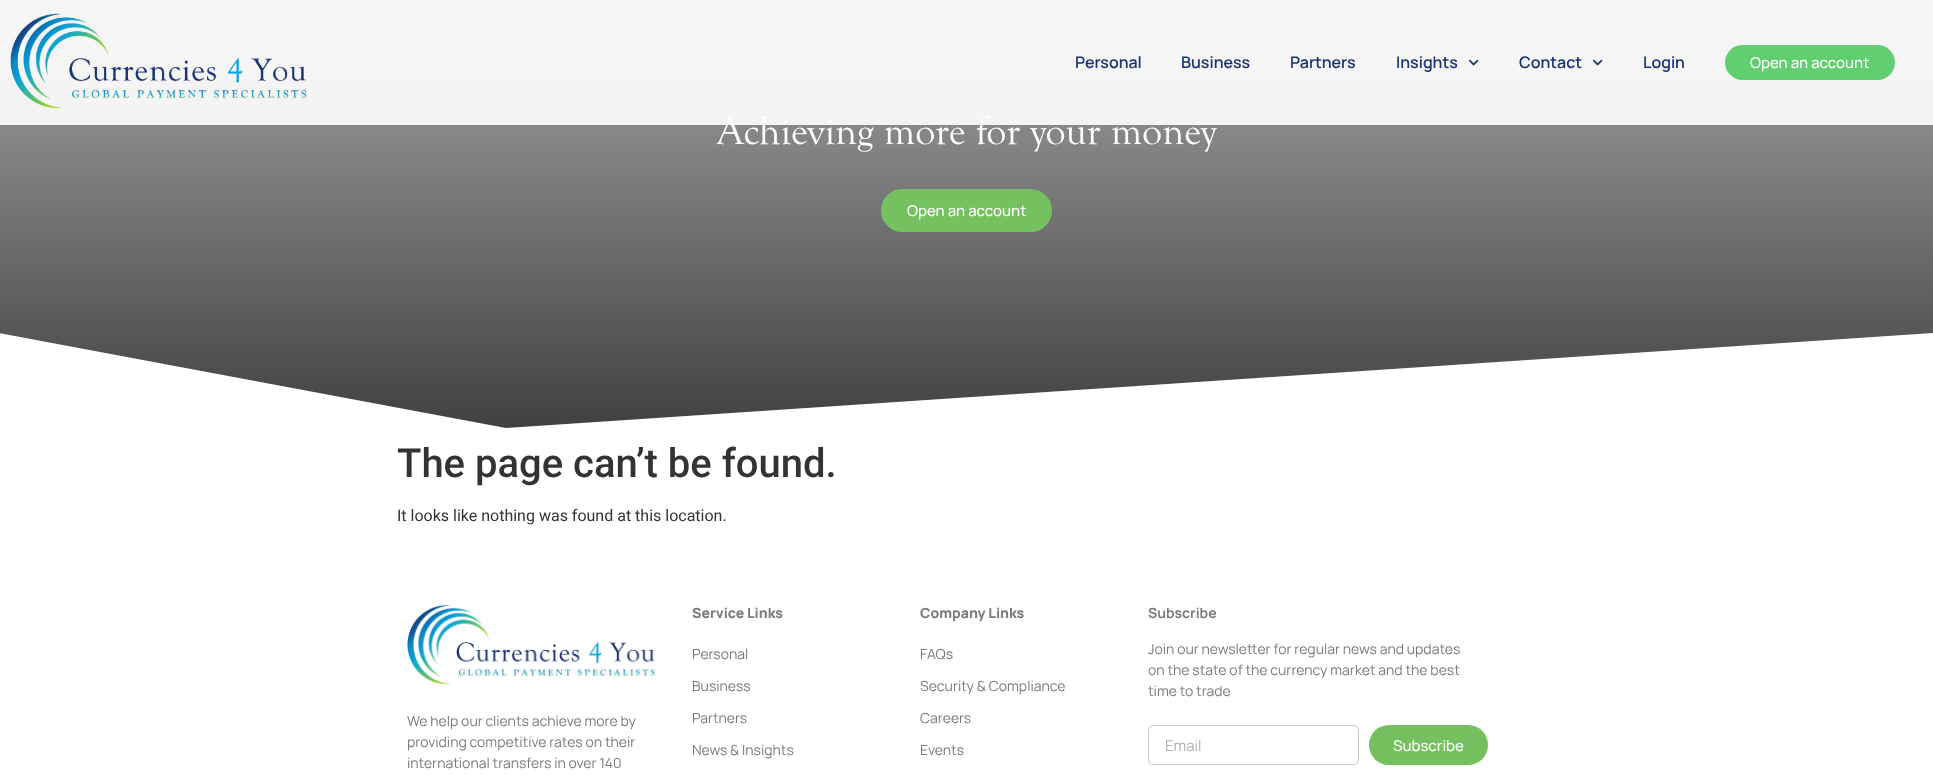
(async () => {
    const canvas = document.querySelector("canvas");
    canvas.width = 1933;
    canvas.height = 780;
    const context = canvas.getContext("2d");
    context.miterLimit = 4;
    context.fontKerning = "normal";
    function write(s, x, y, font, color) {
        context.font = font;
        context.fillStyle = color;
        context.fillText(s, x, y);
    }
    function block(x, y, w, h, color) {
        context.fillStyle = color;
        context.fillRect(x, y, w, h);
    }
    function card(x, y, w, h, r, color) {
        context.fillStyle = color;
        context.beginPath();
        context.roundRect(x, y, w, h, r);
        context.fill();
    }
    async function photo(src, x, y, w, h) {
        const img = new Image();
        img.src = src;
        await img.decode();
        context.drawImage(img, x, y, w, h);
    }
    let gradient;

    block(0, 0, 1933, 780, "rgb(255, 255, 255)");
    gradient = context.createLinearGradient(967, -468, 967, 432);
    gradient.addColorStop(0.1, "rgb(255, 255, 255)");
    gradient.addColorStop(1, "rgb(128, 128, 128)");
    context.fillStyle = gradient;
    context.fillRect(0, 0, 1933, 428);
    gradient = context.createLinearGradient(967, -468, 967, 432);
    gradient.addColorStop(0.1, "rgba(255, 255, 255, 0.5)");
    gradient.addColorStop(1, "rgba(0, 0, 0, 0.5)");
    context.fillStyle = gradient;
    context.fillRect(0, 0, 1933, 428);
    write("Achieving more for your money", 717, 144, "40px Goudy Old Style", "rgb(255, 255, 255)");
    block(0, 0, 1933, 125, "rgba(255, 255, 255, 0.9)");
    await photo("media/1.png", 10, 13, 297, 96);
    write("Personal", 1075, 68, "600 16px Manrope", "rgb(24, 51, 115)");
    write("Business", 1181, 68, "600 16px Manrope", "rgb(24, 51, 115)");
    write("Partners", 1290, 68, "600 16px Manrope", "rgb(24, 51, 115)");
    write("Insights", 1396, 68, "600 16px Manrope", "rgb(24, 51, 115)");
    await photo("media/2.png", 1468, 59, 11, 7);
    write("Contact", 1519, 68, "600 16px Manrope", "rgb(24, 51, 115)");
    await photo("media/2.png", 1592, 59, 11, 7);
    write("Login", 1643, 68, "600 16px Manrope", "rgb(24, 51, 115)");
    card(1725, 45, 170, 35, 17.5, "rgb(97, 206, 112)");
    write("Open an account", 1750, 68, "500 15px Manrope", "rgb(255, 255, 255)");
    context.fillStyle = "rgb(117, 193, 95)";
    context.beginPath();
    context.roundRect(882, 190, 169, 41, 20.5);
    context.fill();
    context.strokeStyle = "rgb(117, 193, 95)";
    context.lineWidth = 2;
    context.stroke();
    write("Open an account", 907, 216, "500 15px Manrope", "rgb(255, 255, 255)");
    context.beginPath();
    context.moveTo(506, 428);
    context.lineTo(1933, 333);
    context.lineTo(1933, 433);
    context.lineTo(-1, 433);
    context.lineTo(-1, 333);
    context.closePath();
    context.fill();
    write("The page can’t be found.", 397, 477, "500 40px Roboto", "rgb(51, 51, 51)");
    write("It looks like nothing was found at this location.", 397, 521, "16px Roboto", "rgb(51, 51, 51)");
    await photo("media/3.png", 407, 605, 249, 80);
    write("We help our clients achieve more by", 407, 726, "14px Manrope", "rgb(122, 122, 122)");
    write("providing competitive rates on their", 407, 747, "14px Manrope", "rgb(122, 122, 122)");
    write("international transfers in over 140", 407, 768, "14px Manrope", "rgb(122, 122, 122)");
    write("Service Links", 692, 618, "800 14px Manrope", "rgb(122, 122, 122)");
    write("Personal", 692, 659, "14px Manrope", "rgb(122, 122, 122)");
    write("Business", 692, 691, "14px Manrope", "rgb(122, 122, 122)");
    write("Partners", 692, 723, "14px Manrope", "rgb(122, 122, 122)");
    write("News & Insights", 692, 755, "14px Manrope", "rgb(122, 122, 122)");
    write("Company Links", 920, 618, "800 14px Manrope", "rgb(122, 122, 122)");
    write("FAQs", 920, 659, "14px Manrope", "rgb(122, 122, 122)");
    write("Security & Compliance", 920, 691, "14px Manrope", "rgb(122, 122, 122)");
    write("Careers", 920, 723, "14px Manrope", "rgb(122, 122, 122)");
    write("Events", 920, 755, "14px Manrope", "rgb(122, 122, 122)");
    write("Subscribe", 1148, 618, "bold 14px Manrope", "rgb(122, 122, 122)");
    write("Join our newsletter for regular news and updates", 1148, 654, "14px Manrope", "rgb(122, 122, 122)");
    write("on the state of the currency market and the best", 1148, 675, "14px Manrope", "rgb(122, 122, 122)");
    write("time to trade", 1148, 696, "14px Manrope", "rgb(122, 122, 122)");
    context.beginPath();
    context.roundRect(1148.5, 725.5, 210, 39, 4.5);
    context.strokeStyle = "rgb(200, 200, 200)";
    context.lineWidth = 1;
    context.stroke();
    write("Email", 1165, 751, "15px Manrope", "rgb(175, 175, 175)");
    card(1369, 725, 119, 40, 20, "rgb(117, 193, 95)");
    write("Subscribe", 1393, 751, "500 15px Manrope", "rgb(255, 255, 255)");
})();
